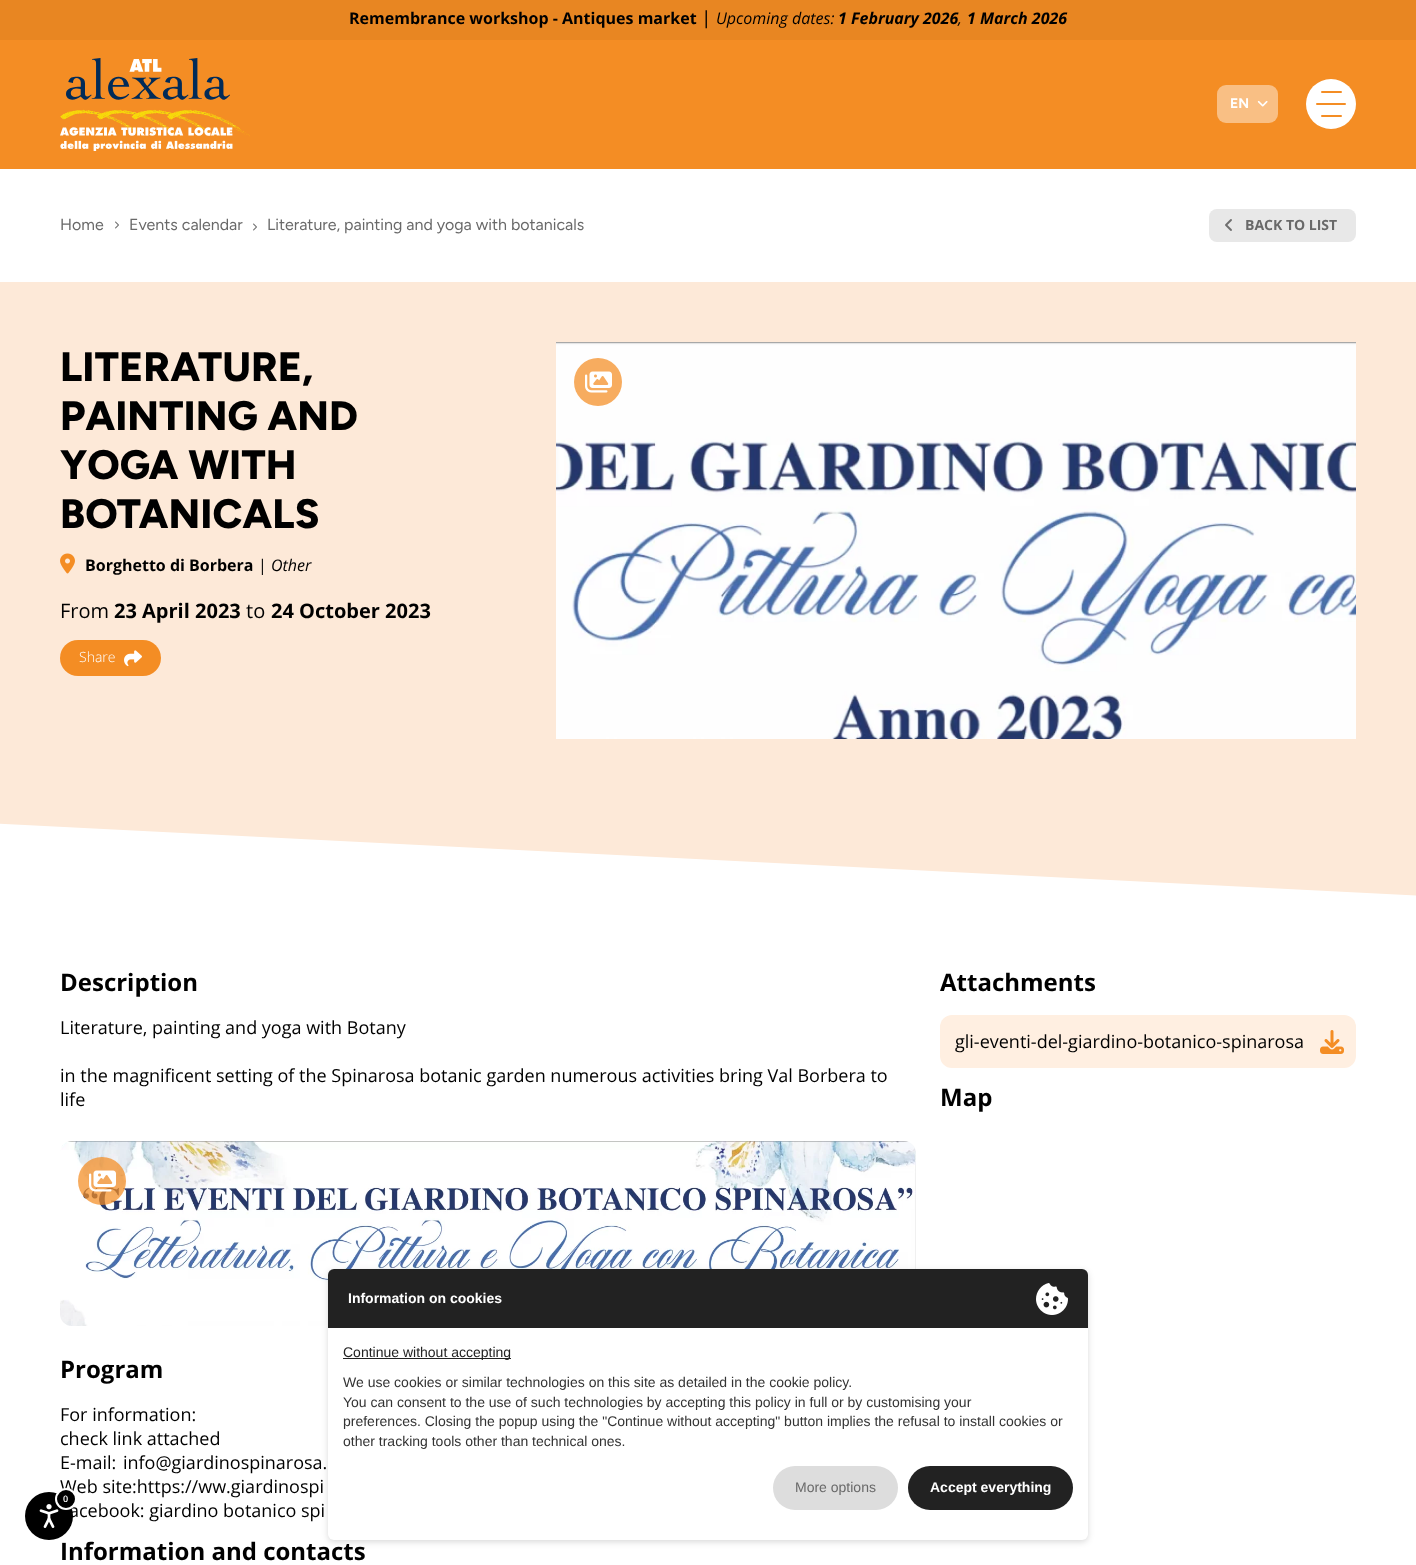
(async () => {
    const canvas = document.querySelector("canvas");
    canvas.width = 1416;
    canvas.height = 1565;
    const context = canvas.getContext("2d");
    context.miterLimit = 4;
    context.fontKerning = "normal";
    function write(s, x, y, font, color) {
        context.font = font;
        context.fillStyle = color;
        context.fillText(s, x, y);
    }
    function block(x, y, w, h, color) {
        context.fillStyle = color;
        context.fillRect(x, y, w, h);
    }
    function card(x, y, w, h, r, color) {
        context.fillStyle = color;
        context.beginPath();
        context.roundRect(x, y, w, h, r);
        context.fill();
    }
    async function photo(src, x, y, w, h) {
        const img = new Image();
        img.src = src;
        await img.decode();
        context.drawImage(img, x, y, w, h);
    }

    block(0, 0, 1416, 1565, "rgb(255, 255, 255)");
    block(0, 0, 1416, 40, "rgb(232, 134, 34)");
    write("Remembrance workshop - Antiques market", 349, 24, "bold 16px Open Sans", "rgb(0, 0, 0)");
    write("|", 701, 24, "italic 500 18px Open Sans", "rgb(0, 0, 0)");
    write("Upcoming dates:", 716, 24, "italic 16px Open Sans", "rgb(0, 0, 0)");
    write("1 February 2026", 838, 24, "italic bold 16px Open Sans", "rgb(0, 0, 0)");
    write("1 March 2026", 967, 24, "italic bold 16px Open Sans", "rgb(0, 0, 0)");
    write(",", 958, 24, "italic 16px Open Sans", "rgb(0, 0, 0)");
    block(0, 40, 1416, 129, "rgb(244, 141, 36)");
    await photo("media/1.png", 60, 58, 190, 93);
    card(1217, 85, 61, 38, 9, "rgb(249, 191, 132)");
    write("EN", 1230, 108, "bold 14px Figtree", "rgb(255, 255, 255)");
    await photo("media/2.png", 1257, 100, 11, 7);
    context.beginPath();
    context.arc(1331, 104, 25, 0, Math.PI * 2);
    context.fill();
    card(1321, 91, 21, 2, 1, "rgb(244, 141, 36)");
    card(1316, 103, 30, 2, 1, "rgb(244, 141, 36)");
    card(1321, 115, 21, 2, 1, "rgb(244, 141, 36)");
    write("Home", 60, 230, "16px Figtree", "rgb(105, 105, 105)");
    await photo("media/3.png", 115, 221, 4, 8);
    write("Events calendar", 129, 230, "16px Figtree", "rgb(105, 105, 105)");
    await photo("media/3.png", 253, 223, 4, 8);
    write("Literature, painting and yoga with botanicals", 267, 230, "16px Figtree", "rgb(105, 105, 105)");
    card(1209, 209, 147, 33, 8, "rgb(232, 232, 232)");
    await photo("media/4.png", 1225, 219, 7, 12);
    write("BACK TO LIST", 1245, 230, "bold 14px Open Sans", "rgb(105, 105, 105)");
    block(0, 282, 1416, 614, "rgb(253, 233, 216)");
    write("LITERATURE,", 60, 381, "800 41px Figtree", "rgb(0, 0, 0)");
    write("PAINTING AND", 60, 430, "800 41px Figtree", "rgb(0, 0, 0)");
    write("YOGA WITH", 60, 479, "800 41px Figtree", "rgb(0, 0, 0)");
    write("BOTANICALS", 60, 528, "800 41px Figtree", "rgb(0, 0, 0)");
    await photo("media/5.png", 60, 553, 15, 21);
    write("Borghetto di Borbera", 85, 571, "bold 16px Open Sans", "rgb(0, 0, 0)");
    write("|", 258, 571, "16px Open Sans", "rgb(0, 0, 0)");
    write("Other", 271, 571, "italic 16px Open Sans", "rgb(0, 0, 0)");
    write("From", 60, 618, "20px Open Sans", "rgb(0, 0, 0)");
    write("23 April 2023", 114, 618, "bold 20px Open Sans", "rgb(0, 0, 0)");
    write("to", 246, 618, "20px Open Sans", "rgb(0, 0, 0)");
    write("24 October 2023", 271, 618, "bold 20px Open Sans", "rgb(0, 0, 0)");
    card(60, 640, 101, 36, 18, "rgb(244, 141, 36)");
    write("Share", 79, 662, "300 14px Open Sans", "rgb(255, 255, 255)");
    await photo("media/6.png", 124, 650, 18, 17);
    await photo("media/7.png", 556, 342, 800, 397);
    context.fillStyle = "rgb(247, 172, 95)";
    context.beginPath();
    context.arc(598, 382, 24, 0, Math.PI * 2);
    context.fill();
    await photo("media/8.png", 585, 371, 27, 22);
    context.save();
    context.beginPath();
    context.rect(0, 282, 1416, 637);
    context.clip();
    context.fillStyle = "rgb(255, 255, 255)";
    context.beginPath();
    context.moveTo(-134, 817);
    context.lineTo(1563, 903);
    context.lineTo(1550, 1177);
    context.lineTo(-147, 1091);
    context.closePath();
    context.fill();
    context.restore();
    write("Description", 60, 991, "bold 24px Open Sans", "rgb(0, 0, 0)");
    write("Literature, painting and yoga with Botany", 60, 1034, "18px Open Sans", "rgb(0, 0, 0)");
    write("in the magnificent setting of the Spinarosa botanic garden numerous activities bring Val Borbera to", 60, 1082, "18px Open Sans", "rgb(0, 0, 0)");
    write("life", 60, 1106, "18px Open Sans", "rgb(0, 0, 0)");
    await photo("media/9.png", 60, 1141, 856, 185);
    context.fillStyle = "rgba(244, 141, 36, 0.73)";
    context.beginPath();
    context.arc(102, 1181, 24, 0, Math.PI * 2);
    context.fill();
    await photo("media/10.png", 89, 1170, 27, 22);
    write("Program", 60, 1378, "bold 24px Open Sans", "rgb(0, 0, 0)");
    write("For information:", 60, 1421, "18px Open Sans", "rgb(0, 0, 0)");
    write("check link attached", 60, 1445, "18px Open Sans", "rgb(0, 0, 0)");
    context.wordSpacing = "2px";
    write("E-mail: info@giardinospinarosa.", 60, 1469, "18px Open Sans", "rgb(0, 0, 0)");
    context.wordSpacing = "0px";
    write("Web site:https://ww.giardinospi", 60, 1493, "18px Open Sans", "rgb(0, 0, 0)");
    write("acebook: giardino botanico spi", 69, 1517, "18px Open Sans", "rgb(0, 0, 0)");
    write("Information and contacts", 60, 1560, "bold 24px Open Sans", "rgb(0, 0, 0)");
    write("Attachments", 940, 991, "bold 24px Open Sans", "rgb(0, 0, 0)");
    card(940, 1015, 416, 53, 12, "rgb(255, 239, 225)");
    write("gli-eventi-del-giardino-botanico-spinarosa", 955, 1048, "18px Open Sans", "rgb(0, 0, 0)");
    await photo("media/11.png", 1320, 1030, 24, 24);
    write("Map", 940, 1106, "bold 24px Open Sans", "rgb(0, 0, 0)");
    context.fillStyle = "rgba(0, 0, 0, 0.15)";
    context.filter = "blur(3px)";
    context.beginPath();
    context.roundRect(328, 1271, 760, 271, 6);
    context.fill();
    context.filter = "none";
    card(328, 1269, 760, 271, 6, "rgb(255, 255, 255)");
    context.fillStyle = "rgb(34, 34, 34)";
    context.beginPath();
    context.roundRect(328, 1269, 760, 59, [6, 6, 0, 0]);
    context.fill();
    write("Information on cookies", 348, 1303, "bold 14px Liberation Sans", "rgb(255, 255, 255)");
    await photo("media/12.png", 1036, 1283, 32, 32);
    block(343, 1358, 168, 1, "rgb(34, 34, 34)");
    write("Continue without accepting", 343, 1357, "14px Liberation Sans", "rgb(34, 34, 34)");
    write("We use cookies or similar technologies on this site as detailed in the cookie policy.", 343, 1387, "14px Liberation Sans", "rgb(51, 51, 51)");
    write("You can consent to the use of such technologies by accepting this policy in full or by customising your", 343, 1407, "14px Liberation Sans", "rgb(51, 51, 51)");
    write("preferences. Closing the popup using the \"Continue without accepting\" button implies the refusal to install cookies or", 343, 1426, "14px Liberation Sans", "rgb(51, 51, 51)");
    write("other tracking tools other than technical ones.", 343, 1446, "14px Liberation Sans", "rgb(51, 51, 51)");
    card(773, 1466, 125, 44, 22, "rgb(221, 221, 221)");
    write("More options", 795, 1492, "14px Liberation Sans", "rgb(105, 105, 105)");
    card(908, 1466, 165, 44, 22, "rgb(34, 34, 34)");
    write("Accept everything", 930, 1492, "bold 14px Liberation Sans", "rgb(255, 255, 255)");
    context.fillStyle = "rgb(0, 0, 0)";
    context.beginPath();
    context.arc(49, 1516, 24, 0, Math.PI * 2);
    context.fill();
    await photo("media/13.png", 39, 1504, 20, 24);
    context.beginPath();
    context.arc(66, 1499, 10, 0, Math.PI * 2);
    context.fill();
    context.strokeStyle = "rgb(255, 255, 255)";
    context.lineWidth = 2;
    context.stroke();
    write("0", 63, 1502, "600 9px Open Sans", "rgb(255, 255, 255)");
})();
